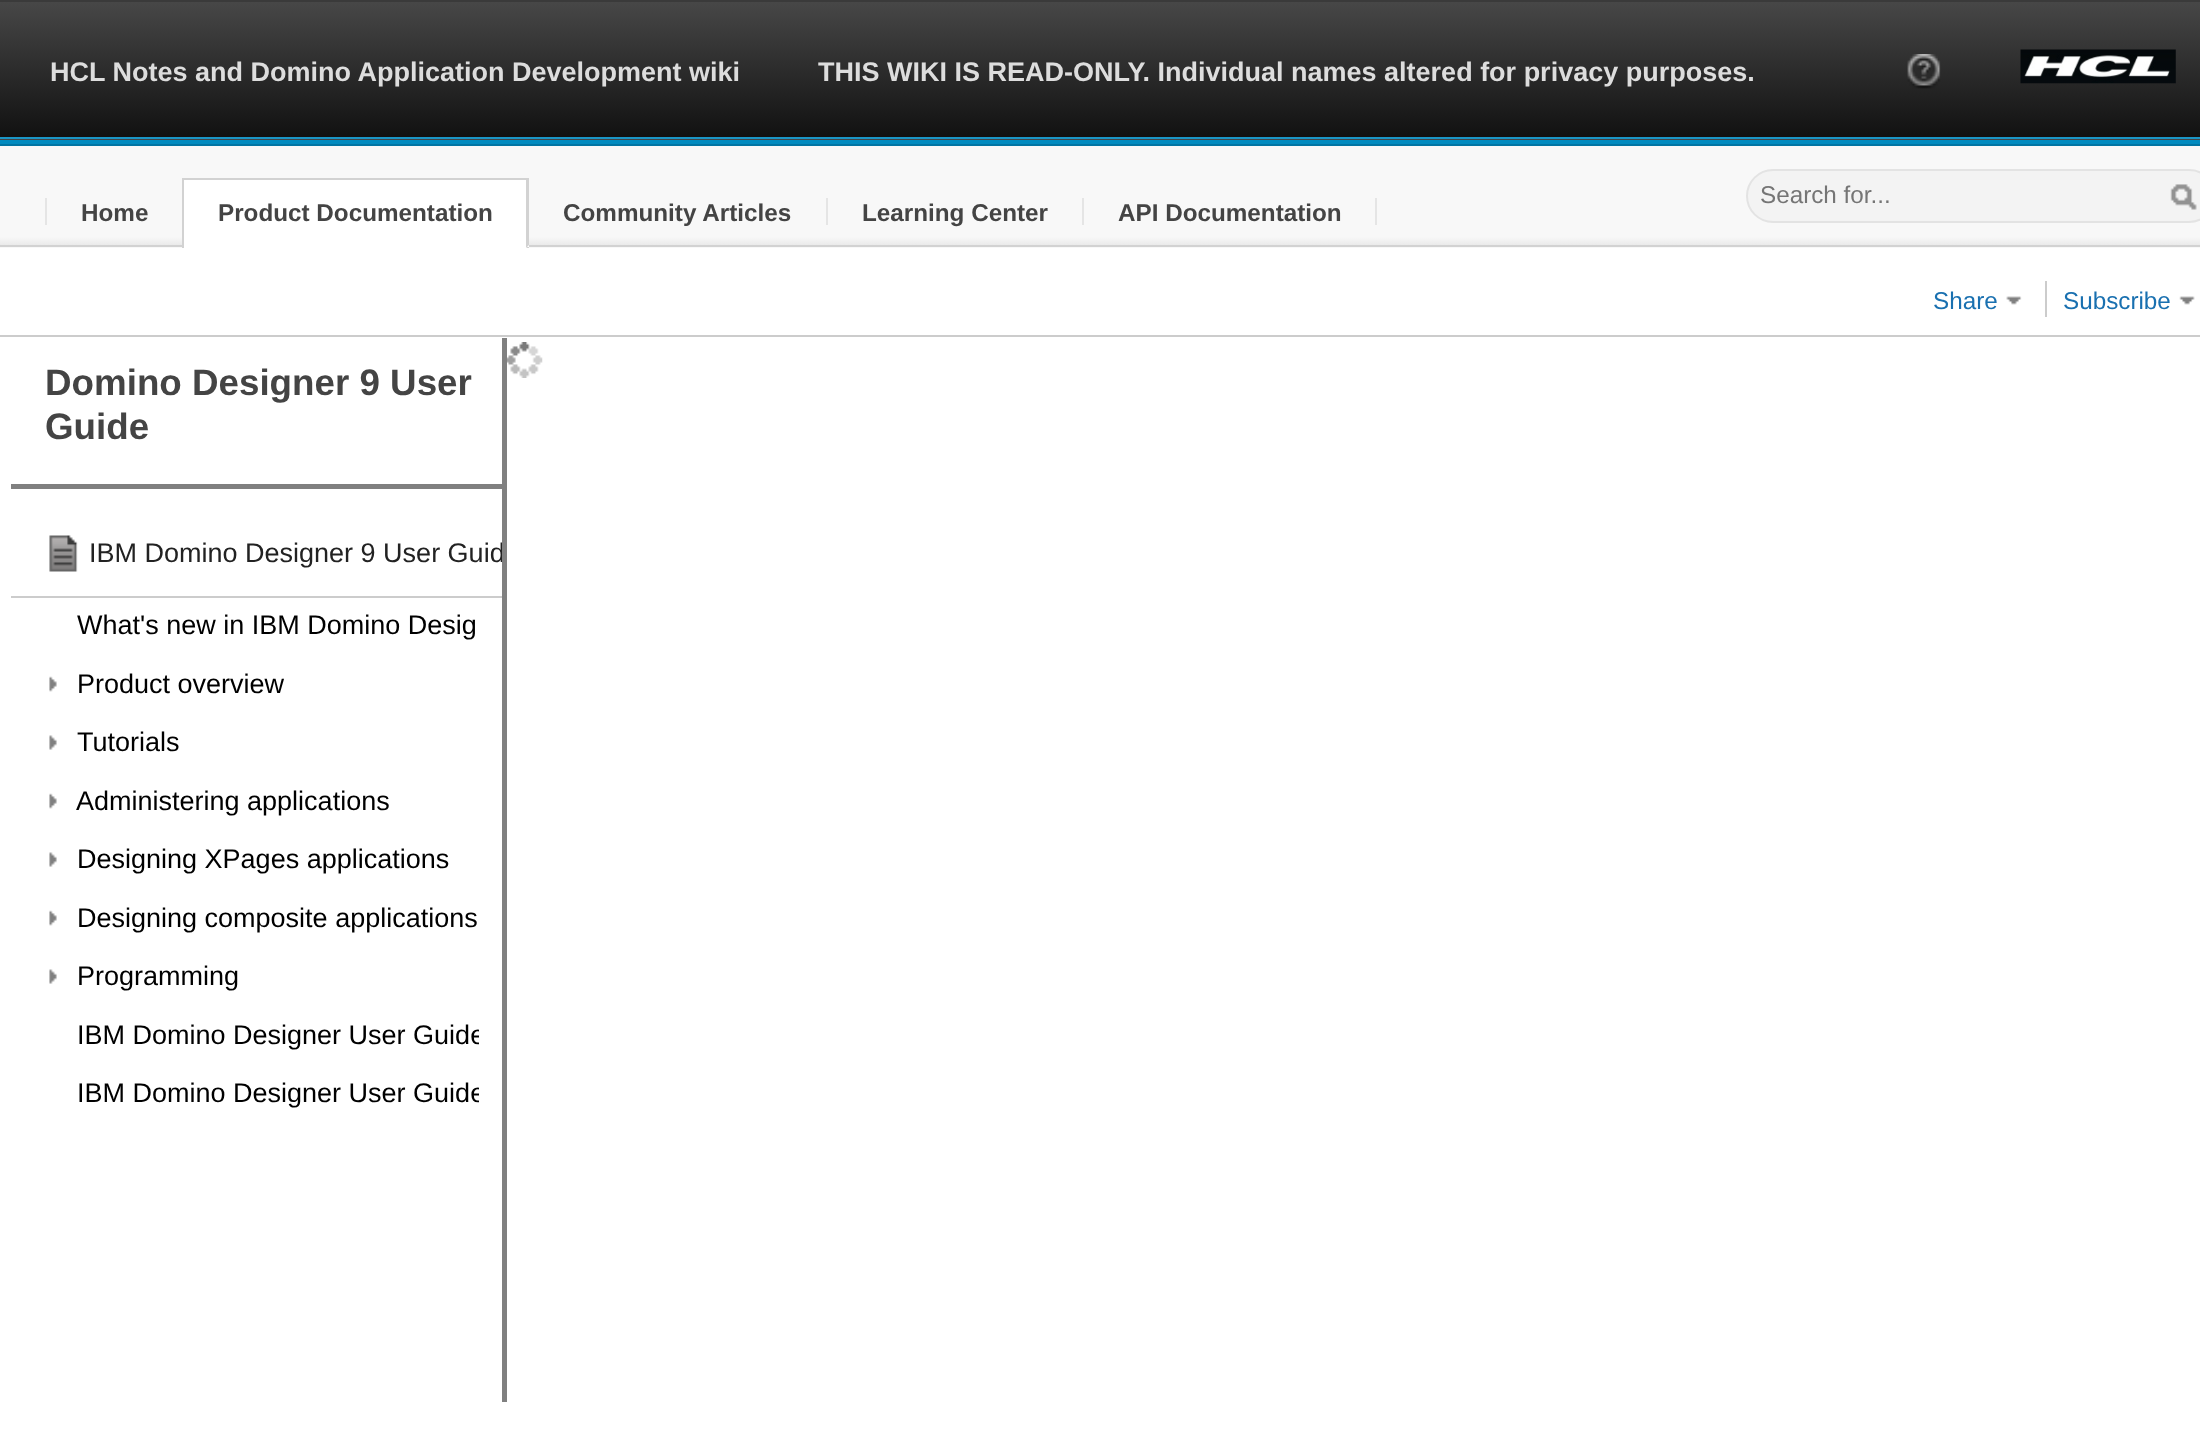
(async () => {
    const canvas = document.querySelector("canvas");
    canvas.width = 2200;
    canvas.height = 1434;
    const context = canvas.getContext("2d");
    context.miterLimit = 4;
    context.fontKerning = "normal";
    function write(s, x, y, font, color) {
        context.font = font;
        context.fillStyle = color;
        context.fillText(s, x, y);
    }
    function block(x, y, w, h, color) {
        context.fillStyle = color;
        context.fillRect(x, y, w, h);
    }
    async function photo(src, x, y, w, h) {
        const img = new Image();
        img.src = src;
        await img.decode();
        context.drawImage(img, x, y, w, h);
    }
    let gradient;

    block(0, 0, 2200, 1434, "rgb(255, 255, 255)");
    block(0, 140, 2200, 4, "rgb(0, 138, 191)");
    block(0, 144, 2200, 2, "rgb(0, 117, 163)");
    gradient = context.createLinearGradient(0, 2.2, 0, 137);
    gradient.addColorStop(0, "rgb(71, 71, 71)");
    gradient.addColorStop(1, "rgb(17, 17, 17)");
    context.fillStyle = gradient;
    context.fillRect(0, 2, 2200, 135);
    gradient = context.createLinearGradient(0, 137, 0, 272);
    gradient.addColorStop(0, "rgb(71, 71, 71)");
    gradient.addColorStop(1, "rgb(17, 17, 17)");
    context.fillStyle = gradient;
    context.fillRect(0, 139, 2200, 1);
    block(0, 0, 2200, 2, "rgb(58, 58, 58)");
    block(0, 137, 2200, 2, "rgb(26, 150, 198)");
    write("HCL Notes and Domino Application Development wiki", 50, 81, "bold 27px Liberation Sans", "rgb(221, 221, 221)");
    write("THIS WIKI IS READ-ONLY. Individual names altered for privacy purposes.", 818, 81, "bold 27px Liberation Sans", "rgb(221, 221, 221)");
    await photo("media/1.png", 1907, 54, 34, 35);
    await photo("media/2.png", 2020, 49, 156, 35);
    gradient = context.createLinearGradient(0, 146, 0, 245);
    gradient.addColorStop(0, "rgb(248, 248, 248)");
    gradient.addColorStop(0.92, "rgb(248, 248, 248)");
    gradient.addColorStop(1, "rgb(234, 234, 234)");
    context.fillStyle = gradient;
    context.fillRect(0, 146, 2200, 99);
    gradient = context.createLinearGradient(0, 245, 0, 344);
    gradient.addColorStop(0, "rgb(248, 248, 248)");
    gradient.addColorStop(0.92, "rgb(248, 248, 248)");
    gradient.addColorStop(1, "rgb(234, 234, 234)");
    context.fillStyle = gradient;
    context.fillRect(0, 247, 2200, 1);
    block(0, 245, 2200, 2, "rgb(210, 210, 210)");
    context.fillStyle = "rgb(243, 243, 243)";
    context.beginPath();
    context.roundRect(1747, 170, 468, 52, 26);
    context.fill();
    context.strokeStyle = "rgb(227, 227, 227)";
    context.lineWidth = 2;
    context.stroke();
    write("Search for...", 1760, 203, "24.25px Liberation Sans", "rgb(117, 117, 117)");
    await photo("media/3.png", 2170, 184, 27, 26);
    write("Home", 81, 221, "bold 24.25px Liberation Sans", "rgb(68, 68, 68)");
    block(45, 198, 2, 27, "rgb(229, 229, 229)");
    block(184, 180, 343, 68, "rgb(255, 255, 255)");
    block(182, 178, 347, 2, "rgb(210, 210, 210)");
    block(527, 178, 2, 70, "rgb(210, 210, 210)");
    block(182, 245, 347, 2, "rgb(255, 255, 255)");
    block(182, 178, 2, 70, "rgb(210, 210, 210)");
    write("Product Documentation", 218, 221, "bold 24.25px Liberation Sans", "rgb(68, 68, 68)");
    context.fillStyle = "rgb(210, 210, 210)";
    context.beginPath();
    context.moveTo(526, 248);
    context.lineTo(526, 178);
    context.lineTo(529, 180);
    context.lineTo(529, 245);
    context.closePath();
    context.fill();
    write("Community Articles", 563, 221, "bold 24.25px Liberation Sans", "rgb(68, 68, 68)");
    block(826, 198, 2, 27, "rgb(229, 229, 229)");
    write("Learning Center", 862, 221, "bold 24.25px Liberation Sans", "rgb(68, 68, 68)");
    block(1082, 198, 2, 27, "rgb(229, 229, 229)");
    write("API Documentation", 1118, 221, "bold 24.25px Liberation Sans", "rgb(68, 68, 68)");
    block(1375, 198, 2, 27, "rgb(229, 229, 229)");
    block(0, 335, 2200, 2, "rgb(204, 204, 204)");
    write("Share", 1933, 309, "24.25px Liberation Sans", "rgb(25, 112, 176)");
    await photo("media/4.png", 2006, 296, 16, 9);
    block(2045, 281, 2, 36, "rgb(204, 204, 204)");
    write("Subscribe", 2063, 309, "24.25px Liberation Sans", "rgb(25, 112, 176)");
    await photo("media/5.png", 2179, 296, 16, 9);
    await photo("media/6.png", 507, 342, 36, 36);
    block(502, 338, 5, 150, "rgb(128, 128, 128)");
    block(11, 484, 495, 5, "rgb(128, 128, 128)");
    write("Domino Designer 9 User", 45, 395, "bold 36.75px Liberation Sans", "rgb(68, 68, 68)");
    write("Guide", 45, 439, "bold 36.75px Liberation Sans", "rgb(68, 68, 68)");
    block(502, 488, 5, 914, "rgb(128, 128, 128)");
    block(11, 596, 491, 2, "rgb(204, 204, 204)");
    await photo("media/7.png", 49, 535, 29, 37);
    context.save();
    context.beginPath();
    context.rect(11, 488, 491, 914);
    context.clip();
    write("IBM Domino Designer 9 User Guid", 89, 562, "27px Liberation Sans", "rgb(34, 34, 34)");
    context.restore();
    write("What's new in IBM Domino Desig", 77, 634, "27px Liberation Sans", "rgb(0, 0, 0)");
    await photo("media/8.png", 49, 676, 8, 16);
    write("Product overview", 77, 693, "27px Liberation Sans", "rgb(0, 0, 0)");
    await photo("media/9.png", 49, 735, 8, 15);
    write("Tutorials", 77, 751, "27px Liberation Sans", "rgb(0, 0, 0)");
    await photo("media/8.png", 49, 793, 8, 16);
    write("Administering applications", 76, 810, "27px Liberation Sans", "rgb(0, 0, 0)");
    await photo("media/9.png", 49, 852, 8, 15);
    write("Designing XPages applications", 77, 868, "27px Liberation Sans", "rgb(0, 0, 0)");
    await photo("media/8.png", 49, 910, 8, 16);
    write("Designing composite applications", 77, 927, "27px Liberation Sans", "rgb(0, 0, 0)");
    await photo("media/9.png", 49, 969, 8, 15);
    write("Programming", 77, 985, "27px Liberation Sans", "rgb(0, 0, 0)");
    context.save();
    context.beginPath();
    context.rect(23, 599, 456, 526);
    context.clip();
    write("IBM Domino Designer User Guide", 77, 1044, "27px Liberation Sans", "rgb(0, 0, 0)");
    write("IBM Domino Designer User Guide", 77, 1102, "27px Liberation Sans", "rgb(0, 0, 0)");
    context.restore();
})();
